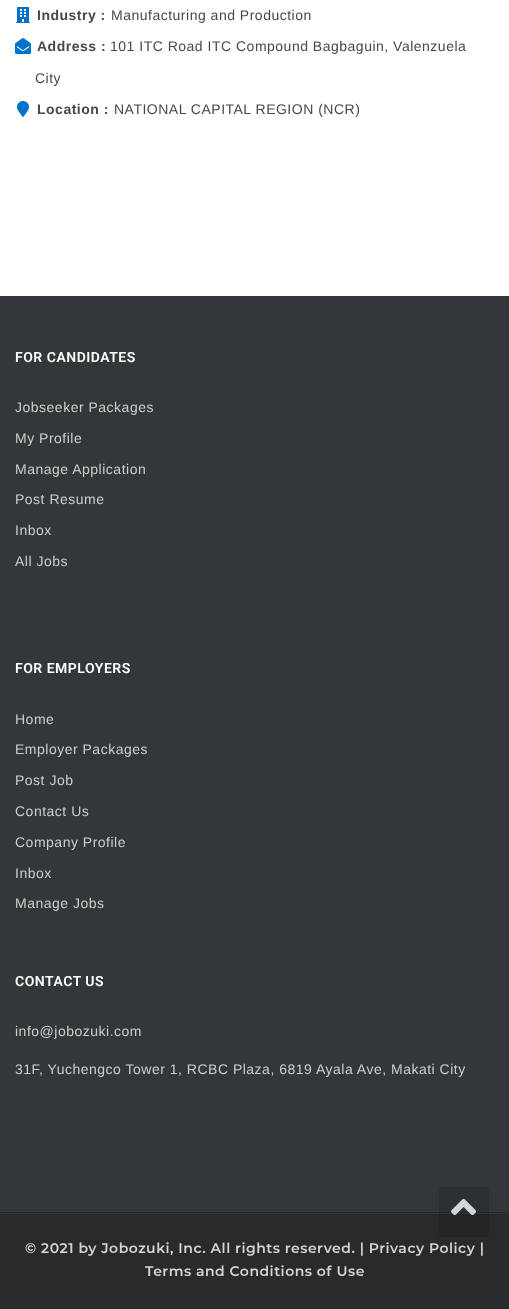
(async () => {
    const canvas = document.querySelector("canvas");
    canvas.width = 509;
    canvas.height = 1309;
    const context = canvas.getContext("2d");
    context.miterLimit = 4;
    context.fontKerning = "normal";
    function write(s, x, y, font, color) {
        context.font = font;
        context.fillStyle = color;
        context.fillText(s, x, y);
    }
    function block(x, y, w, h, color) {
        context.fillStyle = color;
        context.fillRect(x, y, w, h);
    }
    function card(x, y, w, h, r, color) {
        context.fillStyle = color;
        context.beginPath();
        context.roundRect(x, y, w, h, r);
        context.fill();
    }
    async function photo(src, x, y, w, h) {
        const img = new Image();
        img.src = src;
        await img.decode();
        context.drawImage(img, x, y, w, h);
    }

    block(0, 0, 509, 1309, "rgb(255, 255, 255)");
    await photo("media/1.png", 16, 7, 14, 16);
    context.letterSpacing = "0.5px";
    write("Industry :", 37, 20, "bold 14px Liberation Sans", "rgb(68, 73, 75)");
    write("Manufacturing and Production", 111, 20, "14px Liberation Sans", "rgb(68, 73, 75)");
    await photo("media/2.png", 15, 38, 16, 16);
    write("Address :", 37, 51, "bold 14px Liberation Sans", "rgb(68, 73, 75)");
    write("101 ITC Road ITC Compound Bagbaguin, Valenzuela", 110, 51, "14px Liberation Sans", "rgb(68, 73, 75)");
    write("City", 35, 83, "14px Liberation Sans", "rgb(68, 73, 75)");
    await photo("media/3.png", 17, 101, 12, 16);
    write("Location :", 37, 114, "bold 14px Liberation Sans", "rgb(68, 73, 75)");
    write("NATIONAL CAPITAL REGION (NCR)", 114, 114, "14px Liberation Sans", "rgb(68, 73, 75)");
    block(0, 296, 509, 916, "rgb(50, 55, 58)");
    write("FOR CANDIDATES", 15, 362, "600 14px Roboto", "rgb(255, 255, 255)");
    write("Jobseeker Packages", 15, 412, "14px Liberation Sans", "rgb(204, 205, 206)");
    write("My Profile", 15, 443, "14px Liberation Sans", "rgb(204, 205, 206)");
    write("Manage Application", 15, 474, "14px Liberation Sans", "rgb(204, 205, 206)");
    write("Post Resume", 15, 504, "14px Liberation Sans", "rgb(204, 205, 206)");
    write("Inbox", 15, 535, "14px Liberation Sans", "rgb(204, 205, 206)");
    write("All Jobs", 15, 566, "14px Liberation Sans", "rgb(204, 205, 206)");
    write("FOR EMPLOYERS", 15, 673, "600 14px Roboto", "rgb(255, 255, 255)");
    write("Home", 15, 724, "14px Liberation Sans", "rgb(204, 205, 206)");
    write("Employer Packages", 15, 754, "14px Liberation Sans", "rgb(204, 205, 206)");
    write("Post Job", 15, 785, "14px Liberation Sans", "rgb(204, 205, 206)");
    write("Contact Us", 15, 816, "14px Liberation Sans", "rgb(204, 205, 206)");
    write("Company Profile", 15, 847, "14px Liberation Sans", "rgb(204, 205, 206)");
    write("Inbox", 15, 878, "14px Liberation Sans", "rgb(204, 205, 206)");
    write("Manage Jobs", 15, 908, "14px Liberation Sans", "rgb(204, 205, 206)");
    write("CONTACT US", 15, 986, "600 14px Roboto", "rgb(255, 255, 255)");
    write("info@jobozuki.com", 15, 1036, "14px Liberation Sans", "rgb(204, 205, 206)");
    write("31F, Yuchengco Tower 1, RCBC Plaza, 6819 Ayala Ave, Makati City", 15, 1074, "14px Liberation Sans", "rgb(204, 205, 206)");
    block(0, 1212, 509, 97, "rgb(41, 42, 44)");
    block(0, 1213, 509, 1, "rgb(50, 55, 58)");
    write("© 2021 by Jobozuki, Inc. All rights reserved. | Privacy Policy |", 25, 1253, "600 14px Montserrat", "rgb(212, 212, 213)");
    write("Terms and Conditions of Use", 145, 1276, "600 14px Montserrat", "rgb(212, 212, 213)");
    card(439, 1187, 50, 50, 4, "rgba(0, 0, 0, 0.12)");
    await photo("media/4.png", 451, 1199, 26, 16);
})();
